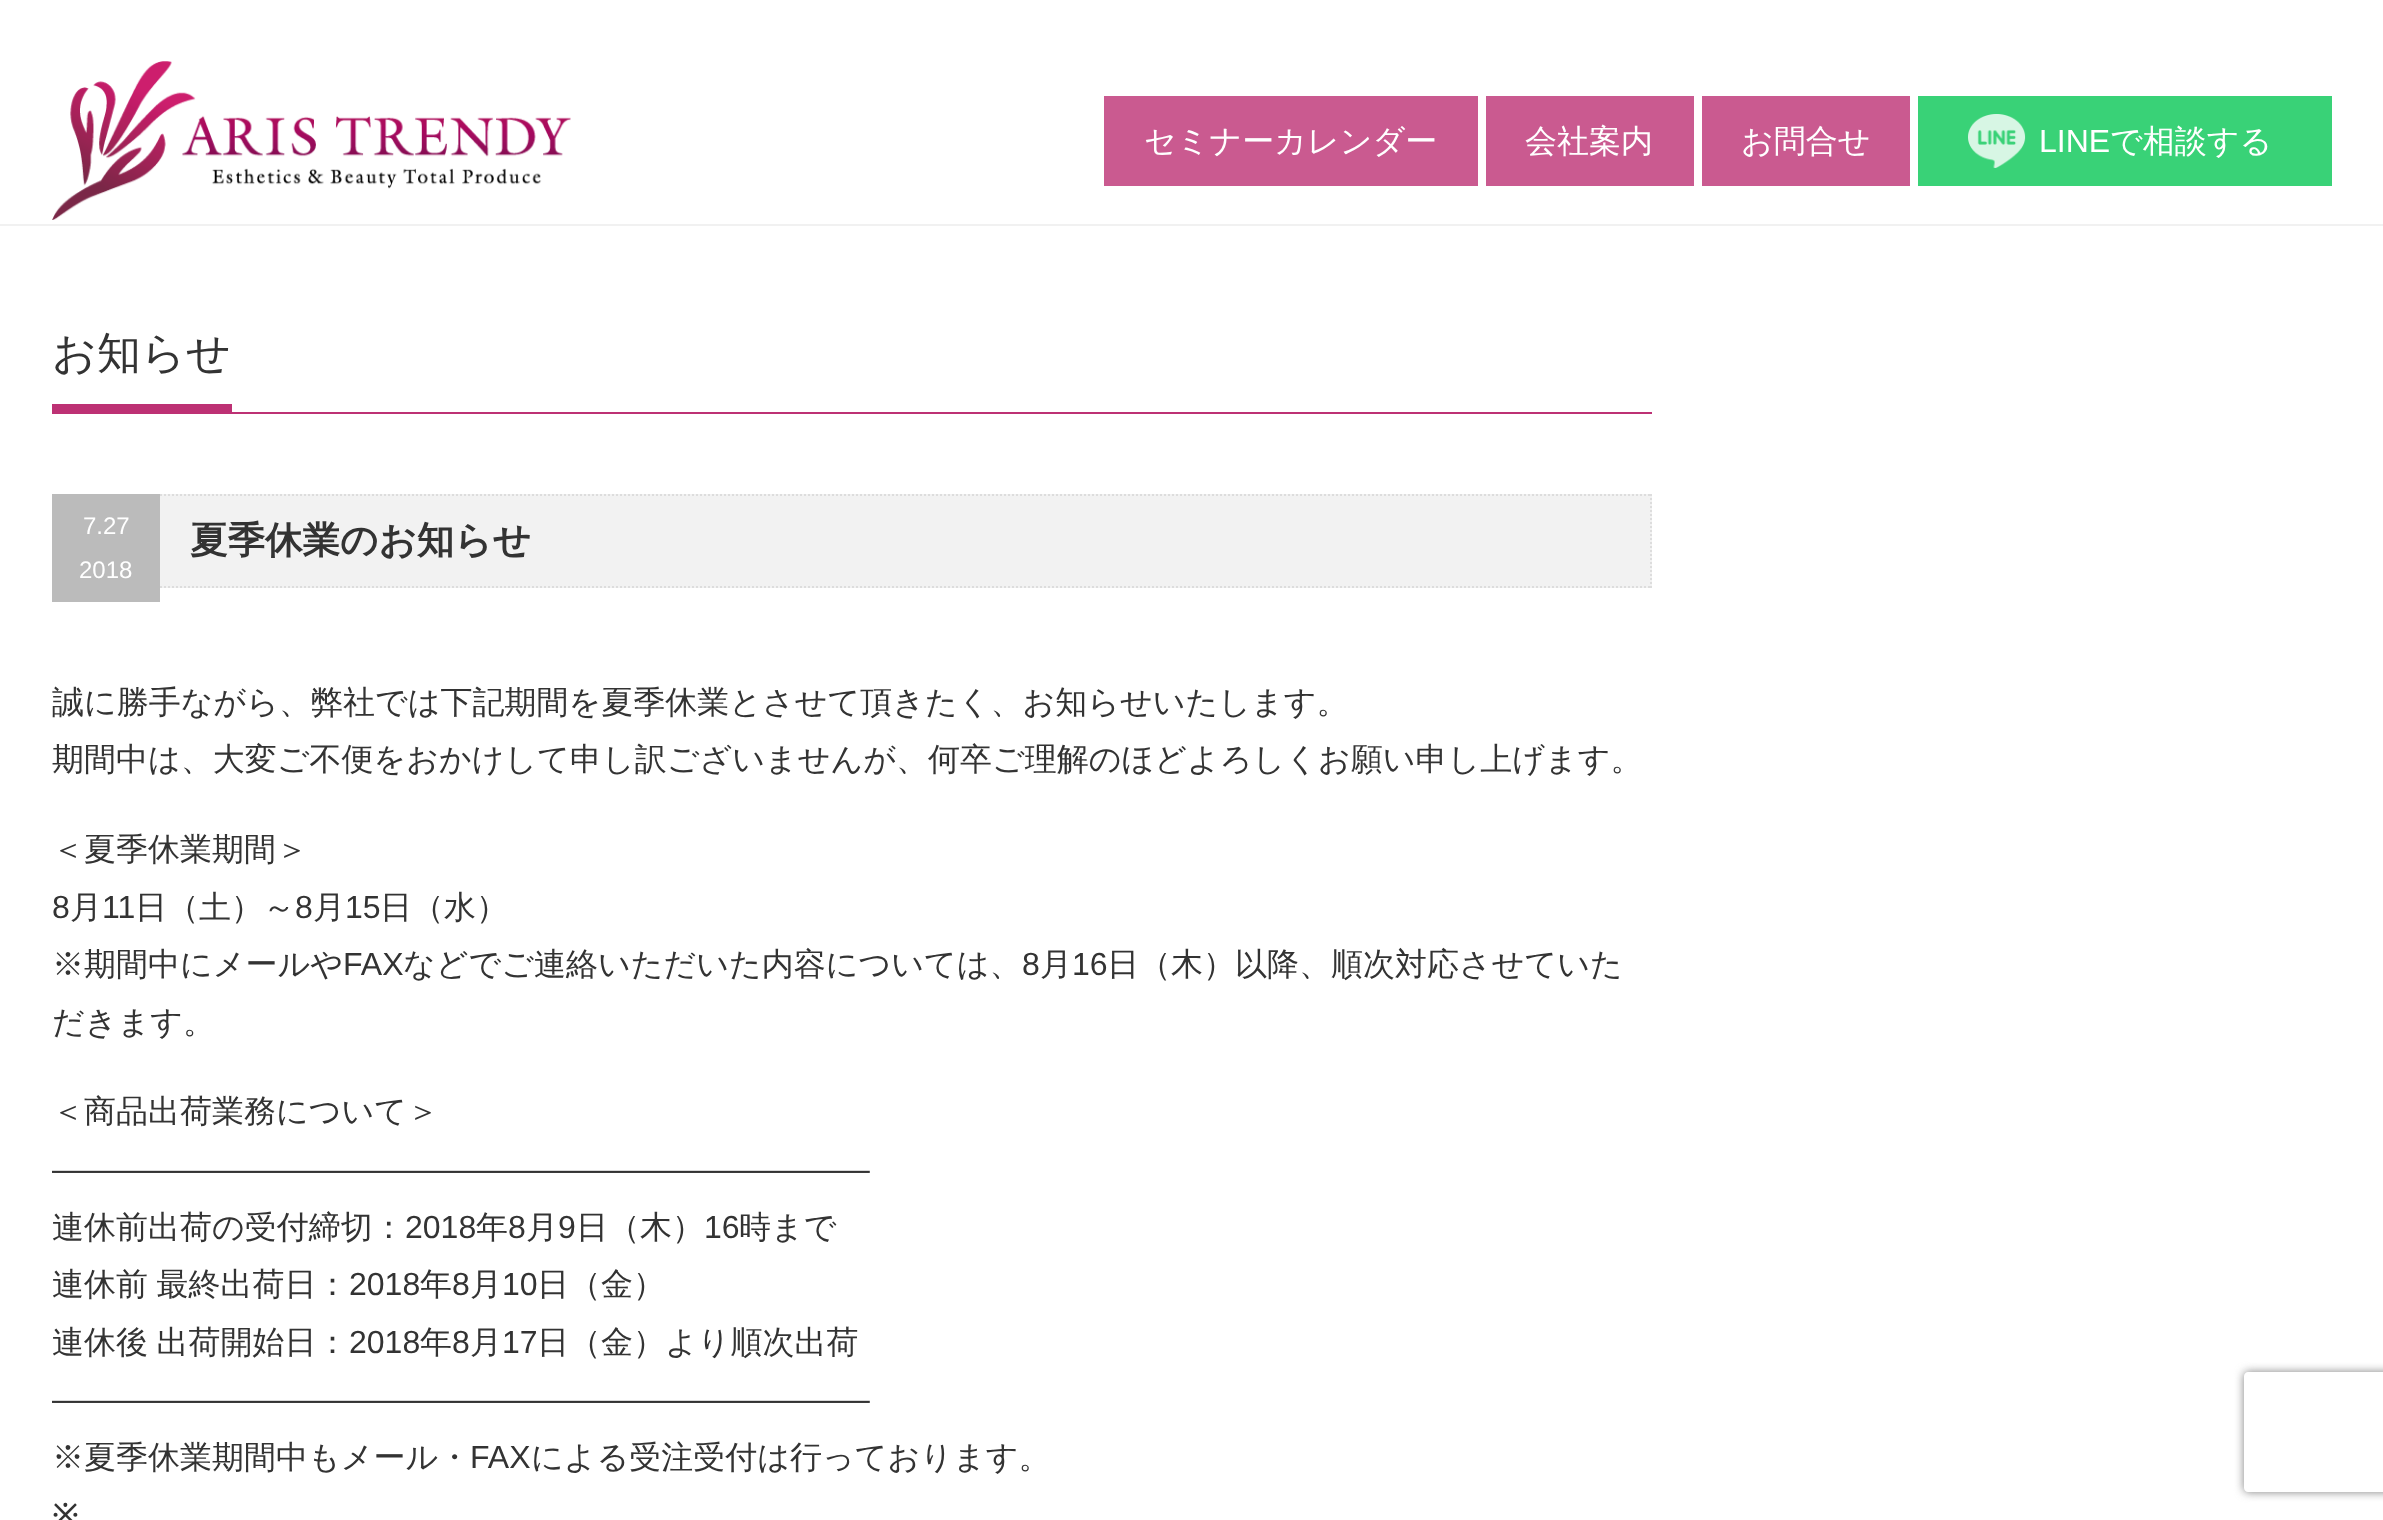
(async () => {
    const canvas = document.querySelector("canvas");
    canvas.width = 2383;
    canvas.height = 1520;
    const context = canvas.getContext("2d");
    context.miterLimit = 4;
    context.fontKerning = "normal";
    function write(s, x, y, font, color) {
        context.font = font;
        context.fillStyle = color;
        context.fillText(s, x, y);
    }
    function block(x, y, w, h, color) {
        context.fillStyle = color;
        context.fillRect(x, y, w, h);
    }
    async function photo(src, x, y, w, h) {
        const img = new Image();
        img.src = src;
        await img.decode();
        context.drawImage(img, x, y, w, h);
    }

    block(0, 0, 2383, 1520, "rgb(255, 255, 255)");
    block(0, 224, 2383, 2, "rgb(241, 241, 241)");
    await photo("media/1.png", 52, 61, 519, 159);
    block(1104, 96, 374, 90, "rgb(202, 90, 144)");
    write("セミナーカレンダー", 1144, 152, "500 32px WenQuanYi Zen Hei", "rgb(255, 255, 255)");
    block(1486, 96, 208, 90, "rgb(202, 90, 144)");
    write("会社案内", 1525, 152, "500 32px WenQuanYi Zen Hei", "rgb(255, 255, 255)");
    block(1702, 96, 208, 90, "rgb(202, 90, 144)");
    write("お問合せ", 1741, 152, "500 32px WenQuanYi Zen Hei", "rgb(255, 255, 255)");
    block(1918, 96, 414, 90, "rgb(57, 210, 119)");
    await photo("media/2.png", 1968, 114, 58, 54);
    write("LINE", 2039, 152, "32px Liberation Sans", "rgb(255, 255, 255)");
    write("で相談する", 2110, 152, "500 32px WenQuanYi Zen Hei", "rgb(255, 255, 255)");
    block(52, 412, 1600, 2, "rgb(189, 49, 116)");
    block(52, 404, 180, 8, "rgb(189, 49, 116)");
    write("お知らせ", 52, 368, "500 44px WenQuanYi Zen Hei", "rgb(51, 51, 51)");
    block(160, 494, 1492, 94, "rgb(242, 242, 242)");
    context.beginPath();
    context.moveTo(52, 495);
    context.lineTo(1652, 495);
    context.strokeStyle = "rgb(221, 221, 221)";
    context.lineWidth = 2;
    context.setLineDash([2, 2]);
    context.stroke();
    context.beginPath();
    context.moveTo(52, 587);
    context.lineTo(1652, 587);
    context.stroke();
    block(52, 494, 108, 108, "rgb(187, 187, 187)");
    write("7.27", 83, 534, "24px Liberation Sans", "rgb(255, 255, 255)");
    write("2018", 79, 578, "24px Liberation Sans", "rgb(255, 255, 255)");
    context.beginPath();
    context.moveTo(1651, 494);
    context.lineTo(1651, 588);
    context.stroke();
    write("夏季休業のお知らせ", 190, 553, "bold 37.5px WenQuanYi Zen Hei", "rgb(51, 51, 51)");
    write("誠に勝手ながら、弊社では下記期間を夏季休業とさせて頂きたく、お知らせいたします。", 52, 713, "500 32px WenQuanYi Zen Hei", "rgb(51, 51, 51)");
    write("期間中は、大変ご不便をおかけして申し訳ございませんが、何卒ご理解のほどよろしくお願い申し上げます。", 52, 770, "500 32px WenQuanYi Zen Hei", "rgb(51, 51, 51)");
    write("＜夏季休業期間＞", 52, 860, "500 32px WenQuanYi Zen Hei", "rgb(51, 51, 51)");
    write("8", 52, 918, "32px Liberation Sans", "rgb(51, 51, 51)");
    write("月", 70, 918, "500 32px WenQuanYi Zen Hei", "rgb(51, 51, 51)");
    write("11", 102, 918, "32px Liberation Sans", "rgb(51, 51, 51)");
    write("日（土）～", 135, 918, "500 32px WenQuanYi Zen Hei", "rgb(51, 51, 51)");
    write("8", 295, 918, "32px Liberation Sans", "rgb(51, 51, 51)");
    write("月", 313, 918, "500 32px WenQuanYi Zen Hei", "rgb(51, 51, 51)");
    write("15", 345, 918, "32px Liberation Sans", "rgb(51, 51, 51)");
    write("日（水）", 380, 918, "500 32px WenQuanYi Zen Hei", "rgb(51, 51, 51)");
    write("※期間中にメールや", 52, 975, "500 32px WenQuanYi Zen Hei", "rgb(51, 51, 51)");
    write("FAX", 343, 975, "32px Liberation Sans", "rgb(51, 51, 51)");
    write("などでご連絡いただいた内容については、", 403, 975, "500 32px WenQuanYi Zen Hei", "rgb(51, 51, 51)");
    write("8", 1022, 975, "32px Liberation Sans", "rgb(51, 51, 51)");
    write("月", 1040, 975, "500 32px WenQuanYi Zen Hei", "rgb(51, 51, 51)");
    write("16", 1072, 975, "32px Liberation Sans", "rgb(51, 51, 51)");
    write("日（木）以降、順次対応させていた", 1107, 975, "500 32px WenQuanYi Zen Hei", "rgb(51, 51, 51)");
    write("だきます。", 52, 1033, "500 32px WenQuanYi Zen Hei", "rgb(51, 51, 51)");
    write("＜商品出荷業務について＞", 52, 1122, "500 32px WenQuanYi Zen Hei", "rgb(51, 51, 51)");
    write("—————————————————————————–", 52, 1180, "32px Liberation Sans", "rgb(51, 51, 51)");
    write("連休前出荷の受付締切：", 52, 1238, "500 32px WenQuanYi Zen Hei", "rgb(51, 51, 51)");
    write("2018", 405, 1238, "32px Liberation Sans", "rgb(51, 51, 51)");
    write("年", 476, 1238, "500 32px WenQuanYi Zen Hei", "rgb(51, 51, 51)");
    write("8", 508, 1238, "32px Liberation Sans", "rgb(51, 51, 51)");
    write("月", 526, 1238, "500 32px WenQuanYi Zen Hei", "rgb(51, 51, 51)");
    write("9", 558, 1238, "32px Liberation Sans", "rgb(51, 51, 51)");
    write("日（木）", 576, 1238, "500 32px WenQuanYi Zen Hei", "rgb(51, 51, 51)");
    write("16", 704, 1238, "32px Liberation Sans", "rgb(51, 51, 51)");
    write("時まで", 739, 1238, "500 32px WenQuanYi Zen Hei", "rgb(51, 51, 51)");
    context.wordSpacing = "-1px";
    write("連休前 最終出荷日：", 52, 1295, "500 32px WenQuanYi Zen Hei", "rgb(51, 51, 51)");
    context.wordSpacing = "0px";
    write("2018", 349, 1295, "32px Liberation Sans", "rgb(51, 51, 51)");
    write("年", 420, 1295, "500 32px WenQuanYi Zen Hei", "rgb(51, 51, 51)");
    write("8", 452, 1295, "32px Liberation Sans", "rgb(51, 51, 51)");
    write("月", 470, 1295, "500 32px WenQuanYi Zen Hei", "rgb(51, 51, 51)");
    write("10", 502, 1295, "32px Liberation Sans", "rgb(51, 51, 51)");
    write("日（金）", 537, 1295, "500 32px WenQuanYi Zen Hei", "rgb(51, 51, 51)");
    context.wordSpacing = "-1px";
    write("連休後 出荷開始日：", 52, 1353, "500 32px WenQuanYi Zen Hei", "rgb(51, 51, 51)");
    context.wordSpacing = "0px";
    write("2018", 349, 1353, "32px Liberation Sans", "rgb(51, 51, 51)");
    write("年", 420, 1353, "500 32px WenQuanYi Zen Hei", "rgb(51, 51, 51)");
    write("8", 452, 1353, "32px Liberation Sans", "rgb(51, 51, 51)");
    write("月", 470, 1353, "500 32px WenQuanYi Zen Hei", "rgb(51, 51, 51)");
    write("17", 502, 1353, "32px Liberation Sans", "rgb(51, 51, 51)");
    write("日（金）より順次出荷", 537, 1353, "500 32px WenQuanYi Zen Hei", "rgb(51, 51, 51)");
    write("—————————————————————————–", 52, 1410, "32px Liberation Sans", "rgb(51, 51, 51)");
    write("※夏季休業期間中もメール・", 52, 1468, "500 32px WenQuanYi Zen Hei", "rgb(51, 51, 51)");
    write("FAX", 470, 1468, "32px Liberation Sans", "rgb(51, 51, 51)");
    write("による受注受付は行っております。", 531, 1468, "500 32px WenQuanYi Zen Hei", "rgb(51, 51, 51)");
    write("※", 52, 1526, "500 32px Noto Sans", "rgb(51, 51, 51)");
    context.save();
    context.beginPath();
    context.moveTo(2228, 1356);
    context.lineTo(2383, 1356);
    context.lineTo(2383, 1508);
    context.lineTo(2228, 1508);
    context.closePath();
    context.moveTo(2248, 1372);
    context.lineTo(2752, 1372);
    context.bezierCurveTo(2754, 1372, 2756, 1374, 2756, 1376);
    context.lineTo(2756, 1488);
    context.bezierCurveTo(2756, 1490, 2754, 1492, 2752, 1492);
    context.lineTo(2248, 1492);
    context.bezierCurveTo(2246, 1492, 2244, 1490, 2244, 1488);
    context.lineTo(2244, 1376);
    context.bezierCurveTo(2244, 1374, 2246, 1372, 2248, 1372);
    context.closePath();
    context.clip("evenodd");
    context.fillStyle = "rgb(128, 128, 128)";
    context.filter = "blur(5px)";
    context.beginPath();
    context.roundRect(2244, 1372, 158, 120, 4);
    context.fill();
    context.filter = "none";
    context.restore();
})();
